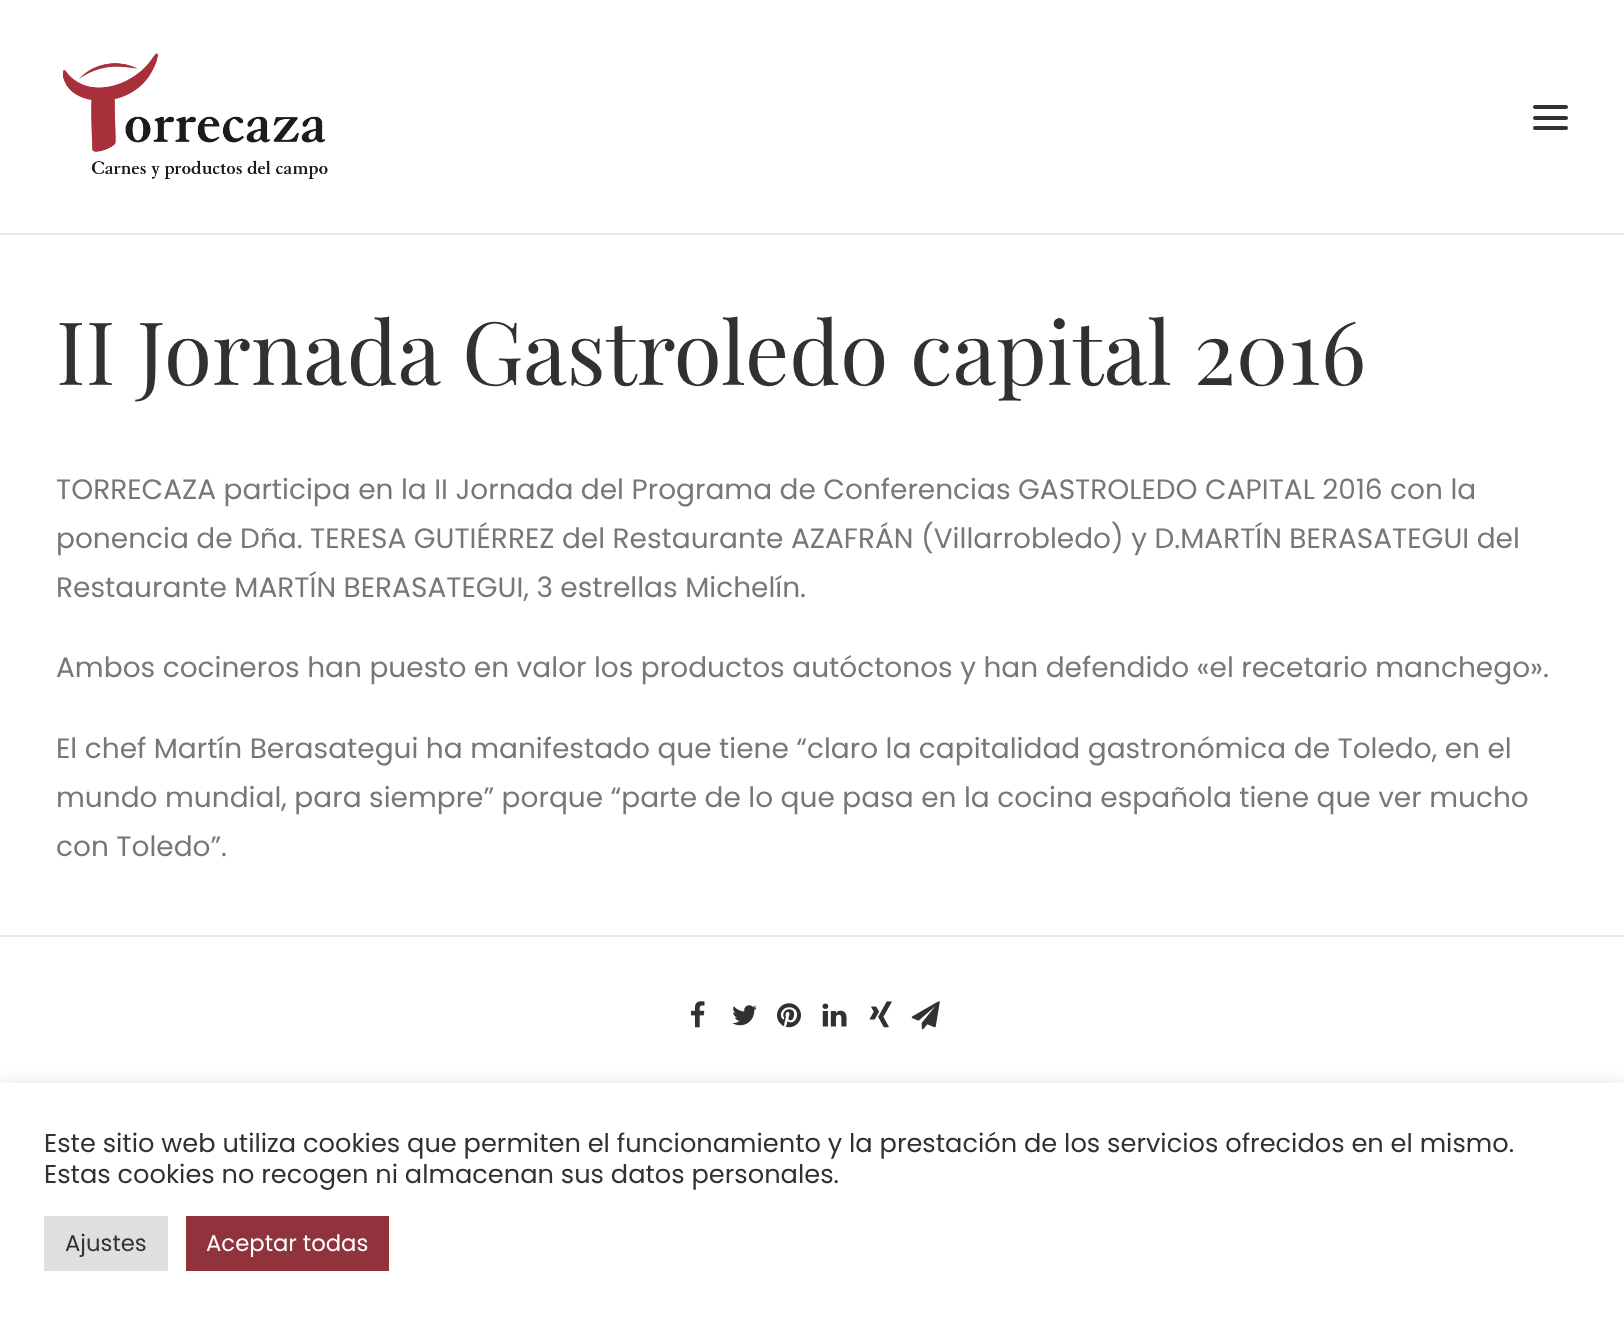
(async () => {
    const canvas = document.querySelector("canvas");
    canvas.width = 1624;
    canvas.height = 1323;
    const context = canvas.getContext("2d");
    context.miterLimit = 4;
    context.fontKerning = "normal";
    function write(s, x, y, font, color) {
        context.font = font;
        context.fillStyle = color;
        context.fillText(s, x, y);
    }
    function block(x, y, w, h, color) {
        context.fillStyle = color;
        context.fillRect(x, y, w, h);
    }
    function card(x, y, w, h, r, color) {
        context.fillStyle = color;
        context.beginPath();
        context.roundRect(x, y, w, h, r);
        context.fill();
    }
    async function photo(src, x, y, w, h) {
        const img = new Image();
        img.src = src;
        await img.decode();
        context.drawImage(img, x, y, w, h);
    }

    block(0, 0, 1624, 1323, "rgb(255, 255, 255)");
    block(0, 233, 1624, 2, "rgb(234, 234, 234)");
    await photo("media/1.png", 63, 53, 265, 126);
    card(1533, 116, 35, 4, 2, "rgb(48, 49, 51)");
    card(1533, 105, 35, 4, 2, "rgb(48, 49, 51)");
    card(1533, 126, 35, 4, 2, "rgb(48, 49, 51)");
    write("II Jornada Gastroledo capital 2016", 56, 385, "87.5px Playfair Display", "rgb(48, 49, 51)");
    write("TORRECAZA participa en la II Jornada del Programa de Conferencias GASTROLEDO CAPITAL 2016 con la", 56, 499, "28px Poppins", "rgb(119, 119, 119)");
    write("ponencia de Dña. TERESA GUTIÉRREZ del Restaurante AZAFRÁN (Villarrobledo) y D.MARTÍN BERASATEGUI del", 56, 548, "28px Poppins", "rgb(119, 119, 119)");
    write("Restaurante MARTÍN BERASATEGUI, 3 estrellas Michelín.", 56, 597, "28px Poppins", "rgb(119, 119, 119)");
    write("Ambos cocineros han puesto en valor los productos autóctonos y han defendido «el recetario manchego».", 56, 677, "28px Poppins", "rgb(119, 119, 119)");
    write("El chef Martín Berasategui ha manifestado que tiene “claro la capitalidad gastronómica de Toledo, en el", 56, 758, "28px Poppins", "rgb(119, 119, 119)");
    write("mundo mundial, para siempre” porque “parte de lo que pasa en la cocina española tiene que ver mucho", 56, 807, "28px Poppins", "rgb(119, 119, 119)");
    write("con Toledo”.", 56, 856, "28px Poppins", "rgb(119, 119, 119)");
    block(0, 935, 1624, 2, "rgb(234, 234, 234)");
    await photo("media/2.png", 690, 1001, 15, 27);
    await photo("media/3.png", 732, 1005, 25, 21);
    await photo("media/4.png", 777, 1003, 24, 25);
    await photo("media/5.png", 822, 1003, 25, 24);
    await photo("media/6.png", 869, 1001, 23, 27);
    await photo("media/7.png", 911, 1001, 29, 29);
    context.fillStyle = "rgba(172, 171, 171, 0.3)";
    context.filter = "blur(9px)";
    context.beginPath();
    context.rect(0, 1082, 1624, 239);
    context.fill();
    context.filter = "none";
    block(0, 1083, 1624, 240, "rgb(255, 255, 255)");
    write("Este sitio web utiliza cookies que permiten el funcionamiento y la prestación de los servicios ofrecidos en el mismo.", 44, 1152, "25.67px Poppins", "rgb(48, 49, 51)");
    write("Estas cookies no recogen ni almacenan sus datos personales.", 44, 1183, "25.67px Poppins", "rgb(48, 49, 51)");
    block(44, 1216, 124, 55, "rgb(222, 223, 224)");
    write("Ajustes", 65, 1251, "22.75px Poppins", "rgb(48, 49, 51)");
    block(186, 1216, 203, 55, "rgb(144, 51, 60)");
    write("Aceptar todas", 206, 1251, "22.75px Poppins", "rgb(255, 255, 255)");
})();
